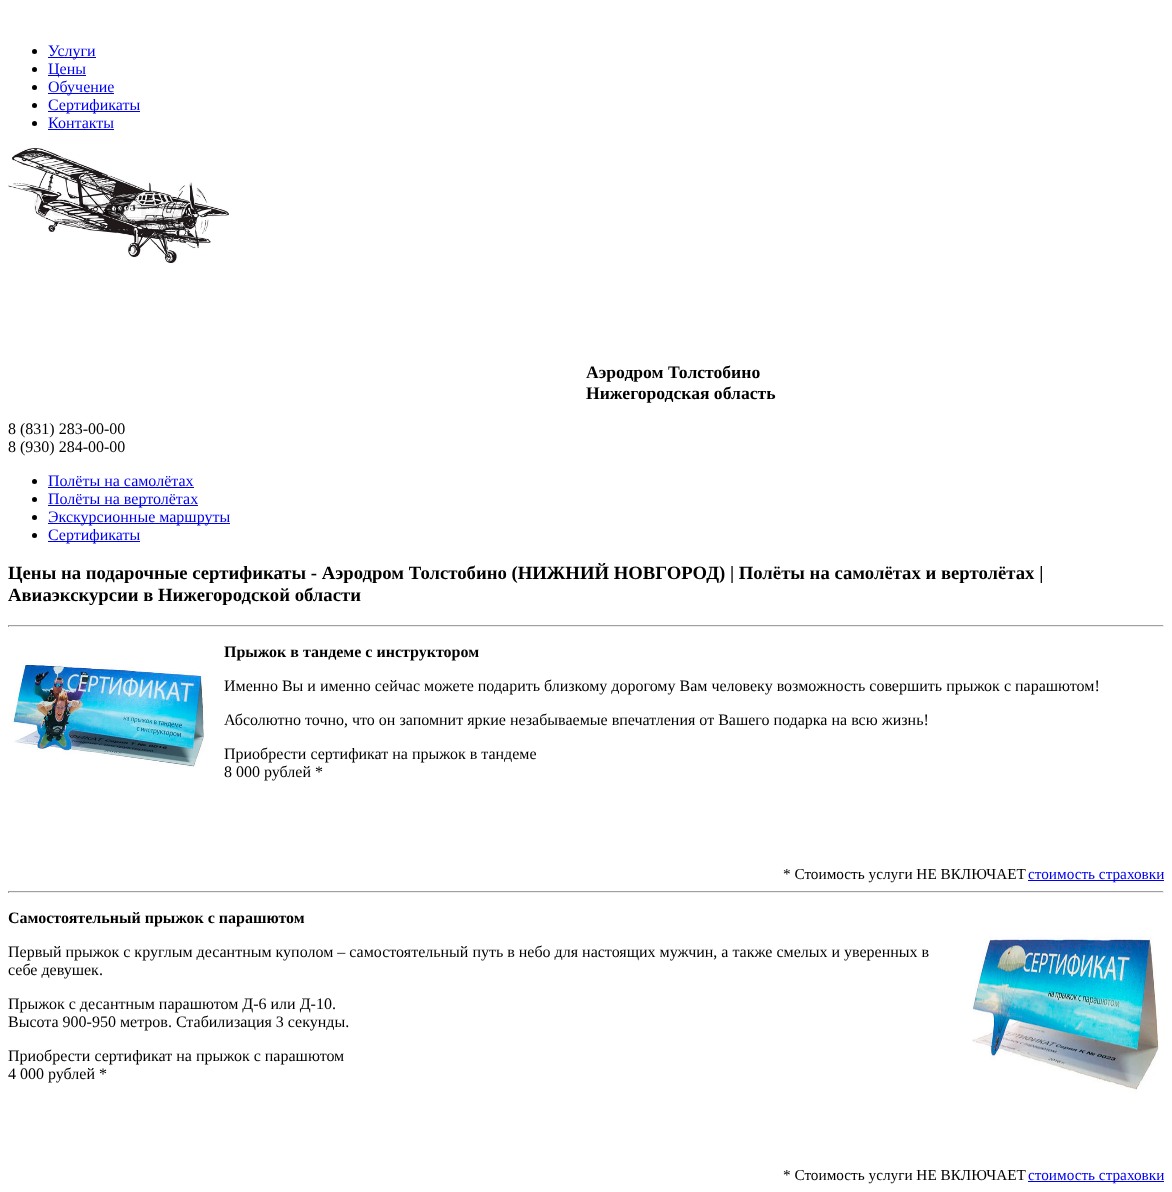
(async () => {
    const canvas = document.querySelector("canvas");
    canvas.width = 1172;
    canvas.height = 1192;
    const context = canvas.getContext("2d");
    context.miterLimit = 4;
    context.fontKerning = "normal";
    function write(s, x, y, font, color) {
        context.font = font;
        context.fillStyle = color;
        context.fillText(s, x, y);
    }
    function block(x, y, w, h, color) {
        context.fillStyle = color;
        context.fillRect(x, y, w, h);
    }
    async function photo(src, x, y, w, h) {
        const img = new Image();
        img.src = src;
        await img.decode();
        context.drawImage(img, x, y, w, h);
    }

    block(0, 0, 1172, 1192, "rgb(255, 255, 255)");
    context.fillStyle = "rgb(0, 0, 0)";
    context.beginPath();
    context.arc(34.5, 51.5, 2.5, 0, Math.PI * 2);
    context.fill();
    block(48, 57, 48, 1, "rgb(0, 0, 238)");
    write("Услуги", 48, 56, "16px Liberation Serif", "rgb(0, 0, 238)");
    context.fillStyle = "rgb(0, 0, 0)";
    context.beginPath();
    context.arc(34.5, 69.5, 2.5, 0, Math.PI * 2);
    context.fill();
    block(48, 75, 38, 1, "rgb(0, 0, 238)");
    write("Цены", 48, 74, "16px Liberation Serif", "rgb(0, 0, 238)");
    context.fillStyle = "rgb(0, 0, 0)";
    context.beginPath();
    context.arc(34.5, 87.5, 2.5, 0, Math.PI * 2);
    context.fill();
    block(48, 93, 66, 1, "rgb(0, 0, 238)");
    write("Обучение", 48, 92, "16px Liberation Serif", "rgb(0, 0, 238)");
    context.fillStyle = "rgb(0, 0, 0)";
    context.beginPath();
    context.arc(34.5, 105.5, 2.5, 0, Math.PI * 2);
    context.fill();
    block(48, 111, 92, 1, "rgb(0, 0, 238)");
    write("Сертификаты", 48, 110, "16px Liberation Serif", "rgb(0, 0, 238)");
    context.fillStyle = "rgb(0, 0, 0)";
    context.beginPath();
    context.arc(34.5, 123.5, 2.5, 0, Math.PI * 2);
    context.fill();
    write("Контакты", 48, 128, "16px Liberation Serif", "rgb(0, 0, 238)");
    block(48, 129, 66, 1, "rgb(0, 0, 238)");
    await photo("media/1.png", 8, 148, 221, 115);
    write("Аэродром Толстобино", 586, 378, "bold 17.6px Liberation Serif", "rgb(0, 0, 0)");
    write("Нижегородская область", 586, 399, "bold 17.6px Liberation Serif", "rgb(0, 0, 0)");
    write("8 (831) 283-00-00", 8, 434, "16px Liberation Serif", "rgb(0, 0, 0)");
    write("8 (930) 284-00-00", 8, 452, "16px Liberation Serif", "rgb(0, 0, 0)");
    context.beginPath();
    context.arc(34.5, 481.5, 2.5, 0, Math.PI * 2);
    context.fill();
    write("Полёты на самолётах", 48, 486, "16px Liberation Serif", "rgb(0, 0, 238)");
    block(48, 487, 146, 1, "rgb(0, 0, 238)");
    context.fillStyle = "rgb(0, 0, 0)";
    context.beginPath();
    context.arc(34.5, 499.5, 2.5, 0, Math.PI * 2);
    context.fill();
    block(48, 505, 150, 1, "rgb(0, 0, 238)");
    write("Полёты на вертолётах", 48, 504, "16px Liberation Serif", "rgb(0, 0, 238)");
    context.fillStyle = "rgb(0, 0, 0)";
    context.beginPath();
    context.arc(34.5, 517.5, 2.5, 0, Math.PI * 2);
    context.fill();
    block(48, 523, 182, 1, "rgb(0, 0, 238)");
    write("Экскурсионные маршруты", 48, 522, "16px Liberation Serif", "rgb(0, 0, 238)");
    context.fillStyle = "rgb(0, 0, 0)";
    context.beginPath();
    context.arc(34.5, 535.5, 2.5, 0, Math.PI * 2);
    context.fill();
    block(48, 541, 92, 1, "rgb(0, 0, 238)");
    write("Сертификаты", 48, 540, "16px Liberation Serif", "rgb(0, 0, 238)");
    write("Цены на подарочные сертификаты - Аэродром Толстобино (НИЖНИЙ НОВГОРОД) | Полёты на самолётах и вертолётах |", 8, 579, "bold 18.72px Liberation Serif", "rgb(0, 0, 0)");
    write("Авиаэкскурсии в Нижегородской области", 8, 601, "bold 18.72px Liberation Serif", "rgb(0, 0, 0)");
    block(8, 625, 1156, 1, "rgb(159, 159, 159)");
    block(1163, 625, 1, 2, "rgb(238, 238, 238)");
    block(8, 626, 1156, 1, "rgb(238, 238, 238)");
    block(8, 625, 1, 2, "rgb(159, 159, 159)");
    write("Прыжок в тандеме с инструктором", 224, 657, "bold 16px Liberation Serif", "rgb(0, 0, 0)");
    await photo("media/2.png", 11, 663, 194, 105);
    write("Именно Вы и именно сейчас можете подарить близкому дорогому Вам человеку возможность совершить прыжок с парашютом!", 224, 691, "16px Liberation Serif", "rgb(0, 0, 0)");
    write("Абсолютно точно, что он запомнит яркие незабываемые впечатления от Вашего подарка на всю жизнь!", 224, 725, "16px Liberation Serif", "rgb(0, 0, 0)");
    write("Приобрести сертификат на прыжок в тандеме", 224, 759, "16px Liberation Serif", "rgb(0, 0, 0)");
    write("8 000 рублей *", 224, 777, "16px Liberation Serif", "rgb(0, 0, 0)");
    write("* Стоимость услуги НЕ ВКЛЮЧАЕТ", 783, 879, "15.25px Liberation Serif", "rgb(0, 0, 0)");
    block(1028, 880, 136, 1, "rgb(0, 0, 238)");
    write("стоимость страховки", 1028, 879, "15.25px Liberation Serif", "rgb(0, 0, 238)");
    block(8, 891, 1156, 1, "rgb(159, 159, 159)");
    block(1163, 891, 1, 2, "rgb(238, 238, 238)");
    block(8, 892, 1156, 1, "rgb(238, 238, 238)");
    block(8, 891, 1, 2, "rgb(159, 159, 159)");
    write("Самостоятельный прыжок с парашютом", 8, 923, "bold 16px Liberation Serif", "rgb(0, 0, 0)");
    await photo("media/3.png", 972, 935, 188, 158);
    write("Первый прыжок с круглым десантным куполом – самостоятельный путь в небо для настоящих мужчин, а также смелых и уверенных в", 8, 957, "16px Liberation Serif", "rgb(0, 0, 0)");
    write("себе девушек.", 8, 975, "16px Liberation Serif", "rgb(0, 0, 0)");
    write("Прыжок с десантным парашютом Д-6 или Д-10.", 8, 1009, "16px Liberation Serif", "rgb(0, 0, 0)");
    write("Высота 900-950 метров. Стабилизация 3 секунды.", 8, 1027, "16px Liberation Serif", "rgb(0, 0, 0)");
    write("Приобрести сертификат на прыжок с парашютом", 8, 1061, "16px Liberation Serif", "rgb(0, 0, 0)");
    write("4 000 рублей *", 8, 1079, "16px Liberation Serif", "rgb(0, 0, 0)");
    write("* Стоимость услуги НЕ ВКЛЮЧАЕТ", 783, 1180, "15.25px Liberation Serif", "rgb(0, 0, 0)");
    block(1028, 1181, 136, 1, "rgb(0, 0, 238)");
    write("стоимость страховки", 1028, 1180, "15.25px Liberation Serif", "rgb(0, 0, 238)");
})();
